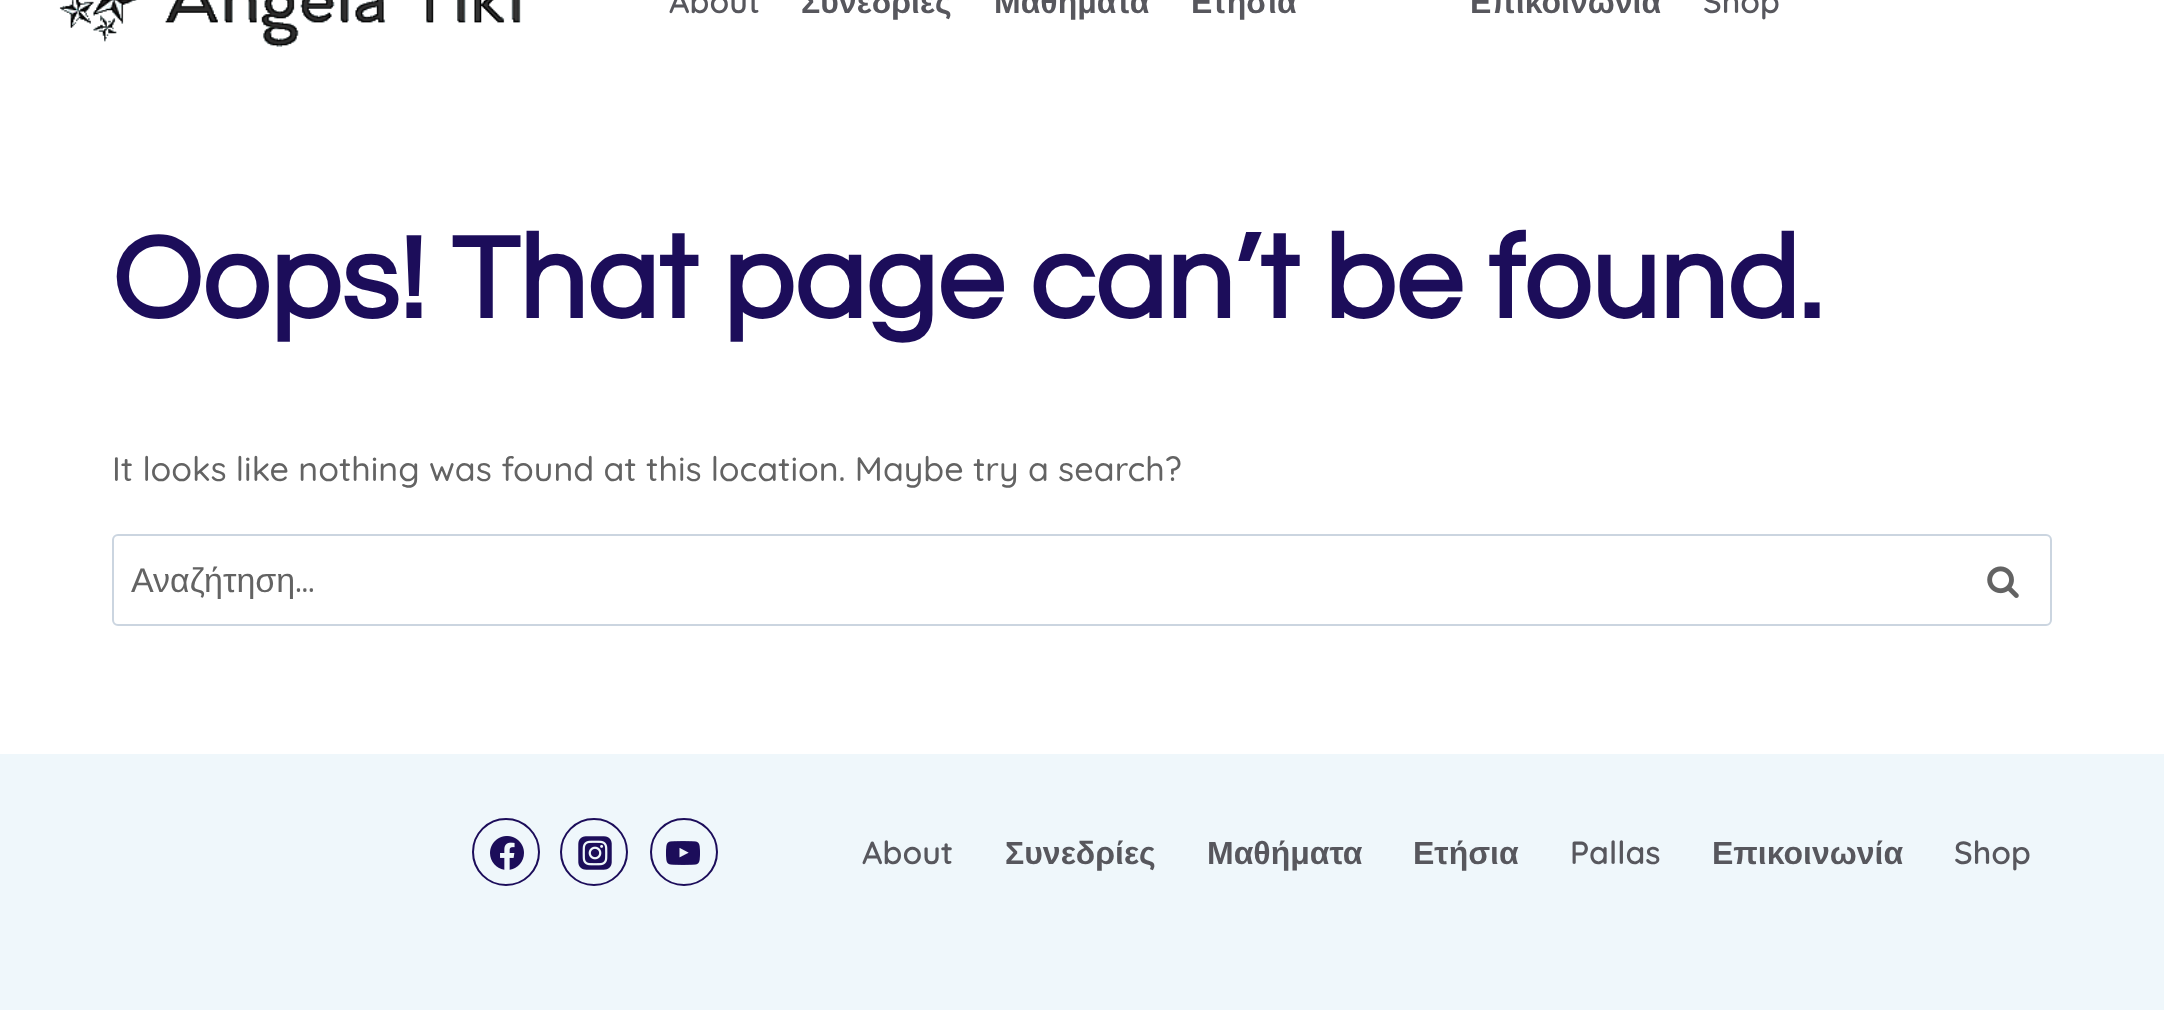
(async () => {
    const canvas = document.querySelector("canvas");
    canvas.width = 2164;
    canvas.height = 1010;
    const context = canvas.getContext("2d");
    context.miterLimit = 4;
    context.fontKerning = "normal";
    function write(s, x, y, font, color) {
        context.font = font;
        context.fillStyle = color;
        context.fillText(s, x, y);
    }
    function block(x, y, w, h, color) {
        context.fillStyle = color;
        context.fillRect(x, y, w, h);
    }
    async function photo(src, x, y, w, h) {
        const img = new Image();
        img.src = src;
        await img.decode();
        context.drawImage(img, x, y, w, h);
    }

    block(0, 0, 2164, 1010, "rgb(255, 255, 255)");
    await photo("media/1.png", 59, 0, 462, 47);
    write("About", 669, 13, "600 32px Quicksand", "rgb(87, 87, 93)");
    write("Συνεδρίες", 801, 13, "bold 32px Liberation Sans", "rgb(87, 87, 93)");
    write("Μαθήματα", 994, 13, "bold 32px Liberation Sans", "rgb(87, 87, 93)");
    write("Ετήσια", 1191, 13, "bold 32px Liberation Sans", "rgb(87, 87, 93)");
    write("Επικοινωνία", 1470, 13, "bold 32px Liberation Sans", "rgb(87, 87, 93)");
    write("Shop", 1703, 13, "600 32px Quicksand", "rgb(87, 87, 93)");
    write("Oops! That page can’t be found.", 112, 318, "bold 120px Questrial", "rgb(28, 13, 90)");
    write("It looks like nothing was found at this location. Maybe try a search?", 112, 481, "500 34px Quicksand", "rgb(99, 99, 99)");
    context.beginPath();
    context.roundRect(113, 535, 1938, 90, 5);
    context.strokeStyle = "rgb(203, 213, 224)";
    context.lineWidth = 2;
    context.stroke();
    write("Αναζήτηση", 131, 592, "34px Liberation Sans", "rgb(99, 99, 99)");
    write("…", 295, 592, "500 34px Quicksand", "rgb(99, 99, 99)");
    await photo("media/2.png", 1987, 566, 32, 32);
    block(0, 754, 2164, 256, "rgb(239, 247, 251)");
    context.beginPath();
    context.arc(506, 852, 33, 0, Math.PI * 2);
    context.strokeStyle = "rgb(28, 13, 90)";
    context.stroke();
    await photo("media/3.png", 490, 836, 34, 34);
    context.beginPath();
    context.arc(594, 852, 33, 0, Math.PI * 2);
    context.stroke();
    await photo("media/4.png", 578, 836, 34, 34);
    context.beginPath();
    context.arc(684, 852, 33, 0, Math.PI * 2);
    context.stroke();
    await photo("media/5.png", 666, 841, 34, 24);
    write("About", 862, 864, "600 32px Quicksand", "rgb(87, 87, 93)");
    write("Συνεδρίες", 1005, 864, "bold 32px Liberation Sans", "rgb(87, 87, 93)");
    write("Μαθήματα", 1207, 864, "bold 32px Liberation Sans", "rgb(87, 87, 93)");
    write("Ετήσια", 1413, 864, "bold 32px Liberation Sans", "rgb(87, 87, 93)");
    write("Pallas", 1570, 864, "600 32px Quicksand", "rgb(87, 87, 93)");
    write("Επικοινωνία", 1712, 864, "bold 32px Liberation Sans", "rgb(87, 87, 93)");
    write("Shop", 1954, 864, "600 32px Quicksand", "rgb(87, 87, 93)");
})();
